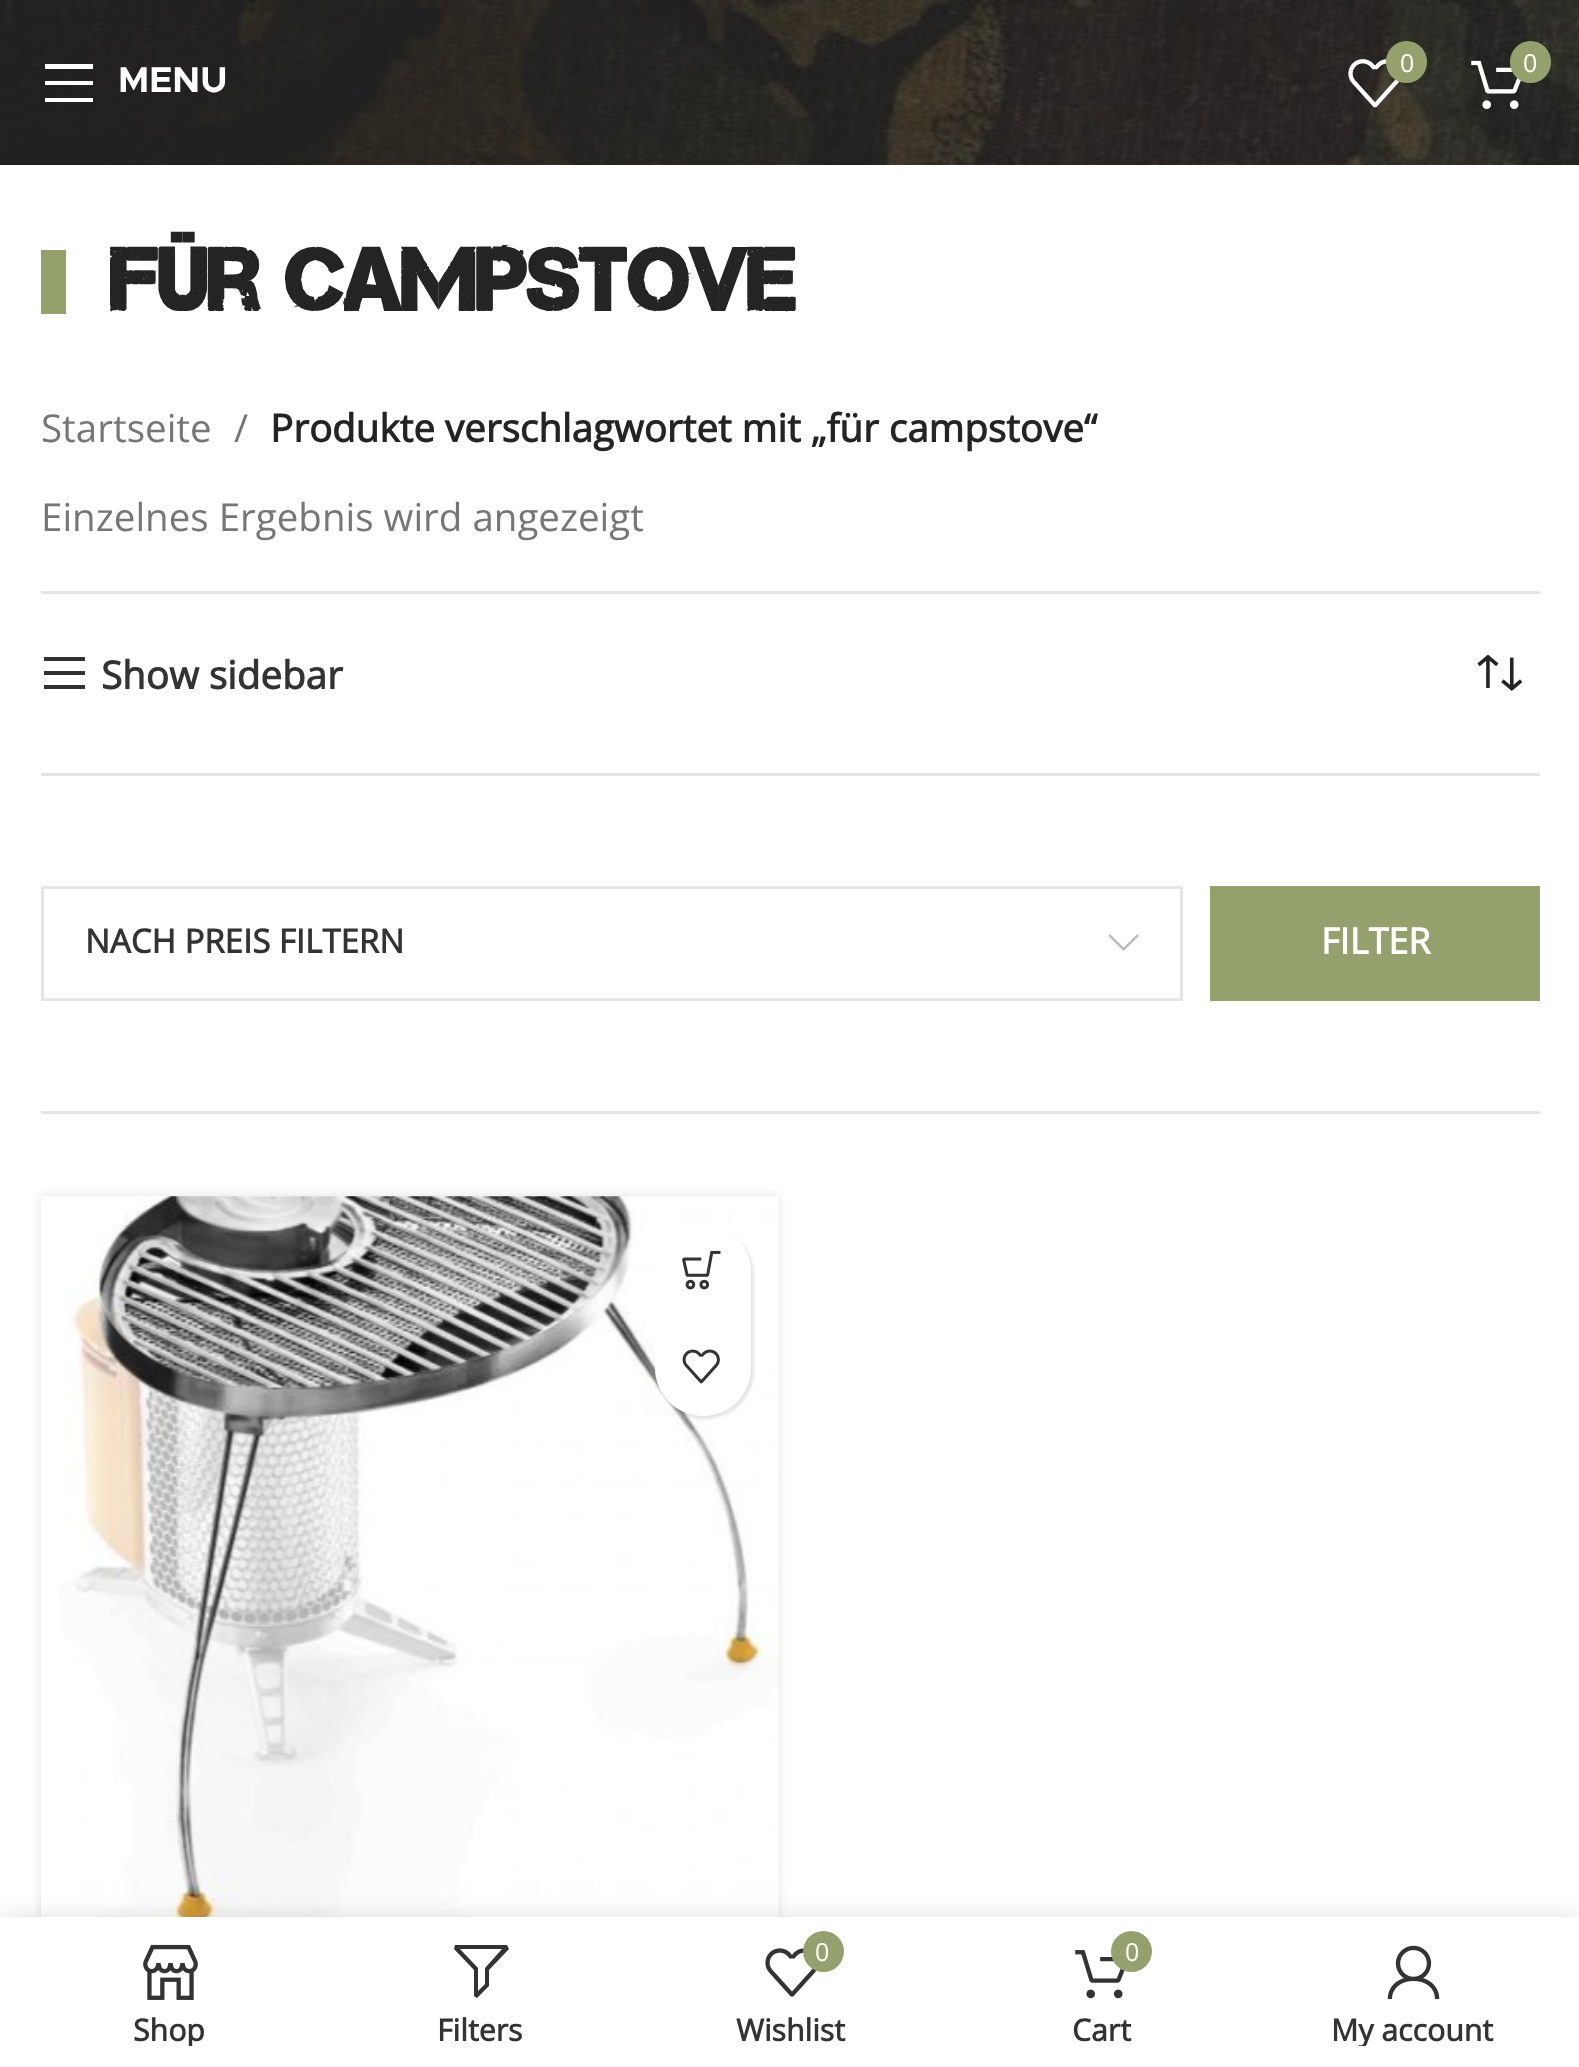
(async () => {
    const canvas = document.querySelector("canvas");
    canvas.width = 1579;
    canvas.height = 2067;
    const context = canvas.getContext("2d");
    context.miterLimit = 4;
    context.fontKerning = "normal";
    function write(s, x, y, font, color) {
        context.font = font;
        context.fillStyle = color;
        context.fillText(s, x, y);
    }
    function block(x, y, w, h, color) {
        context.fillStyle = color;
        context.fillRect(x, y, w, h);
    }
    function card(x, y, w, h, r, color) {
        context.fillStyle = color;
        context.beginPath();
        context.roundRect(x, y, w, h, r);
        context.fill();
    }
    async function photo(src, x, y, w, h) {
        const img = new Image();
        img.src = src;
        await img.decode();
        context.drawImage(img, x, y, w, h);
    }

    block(0, 0, 1579, 2067, "rgb(255, 255, 255)");
    await photo("media/1.png", 0, 0, 1579, 165);
    await photo("media/2.png", 1348, 59, 52, 49);
    card(1386, 41, 41, 42, 20.5, "rgb(149, 161, 109)");
    write("0", 1400, 72, "25px Open Sans", "rgb(255, 255, 255)");
    await photo("media/3.png", 1471, 60, 50, 49);
    card(1510, 41, 41, 42, 20.5, "rgb(149, 161, 109)");
    write("0", 1523, 72, "25px Open Sans", "rgb(255, 255, 255)");
    context.beginPath();
    context.moveTo(45, 69);
    context.lineTo(93, 69);
    context.lineTo(93, 64);
    context.lineTo(45, 64);
    context.closePath();
    context.moveTo(45, 85);
    context.lineTo(93, 85);
    context.lineTo(93, 81);
    context.lineTo(45, 81);
    context.closePath();
    context.moveTo(45, 102);
    context.lineTo(93, 102);
    context.lineTo(93, 98);
    context.lineTo(45, 98);
    context.closePath();
    context.fill();
    write("MENU", 118, 92, "bold 36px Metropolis", "rgb(255, 255, 255)");
    block(41, 250, 25, 64, "rgb(149, 161, 109)");
    write("für campstove", 110, 311, "bold 88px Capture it", "rgb(36, 36, 36)");
    block(41, 591, 1499, 3, "rgb(228, 228, 228)");
    write("Startseite", 41, 442, "38.5px Open Sans", "rgb(118, 118, 118)");
    write("/", 234, 442, "38.5px Open Sans", "rgb(118, 118, 118)");
    write("Produkte verschlagwortet mit „für campstove“", 270, 442, "bold 38.5px Open Sans", "rgb(36, 36, 36)");
    write("Einzelnes Ergebnis wird angezeigt", 41, 531, "38.5px Open Sans", "rgb(118, 118, 118)");
    context.fillStyle = "rgb(51, 51, 51)";
    context.beginPath();
    context.moveTo(44, 661);
    context.lineTo(85, 661);
    context.lineTo(85, 657);
    context.lineTo(44, 657);
    context.closePath();
    context.moveTo(44, 675);
    context.lineTo(85, 675);
    context.lineTo(85, 671);
    context.lineTo(44, 671);
    context.closePath();
    context.moveTo(44, 689);
    context.lineTo(85, 689);
    context.lineTo(85, 685);
    context.lineTo(44, 685);
    context.closePath();
    context.fill();
    write("Show sidebar", 101, 689, "bold 38.5px Open Sans", "rgb(51, 51, 51)");
    await photo("media/4.png", 1477, 654, 46, 37);
    block(41, 773, 1499, 3, "rgb(228, 228, 228)");
    block(41, 1111, 1499, 3, "rgb(228, 228, 228)");
    context.strokeStyle = "rgb(230, 230, 230)";
    context.lineWidth = 3;
    context.strokeRect(42.5, 887.5, 1139, 112);
    write("NACH PREIS FILTERN", 85, 953, "bold 33px Open Sans", "rgb(51, 51, 51)");
    context.fillStyle = "rgb(187, 187, 187)";
    context.beginPath();
    context.moveTo(1137.5, 934);
    context.lineTo(1123.5, 947.5);
    context.lineTo(1110, 934);
    context.lineTo(1108.5, 936);
    context.lineTo(1123.5, 951);
    context.lineTo(1139, 936);
    context.closePath();
    context.fill();
    block(1210, 886, 330, 115, "rgb(149, 161, 109)");
    write("FILTER", 1321, 954, "bold 36px Open Sans", "rgb(255, 255, 255)");
    context.fillStyle = "rgba(0, 0, 0, 0.12)";
    context.filter = "blur(5.5px)";
    context.beginPath();
    context.rect(41, 1196, 737, 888);
    context.fill();
    context.filter = "none";
    block(41, 1196, 737, 721, "rgb(255, 255, 255)");
    await photo("media/5.png", 59, 1196, 720, 721);
    context.fillStyle = "rgba(0, 0, 0, 0.1)";
    context.filter = "blur(1.5px)";
    context.beginPath();
    context.roundRect(657, 1227, 97, 192, 48.5);
    context.fill();
    context.filter = "none";
    card(655, 1224, 96, 192, 48, "rgb(255, 255, 255)");
    await photo("media/6.png", 682, 1250, 39, 40);
    await photo("media/7.png", 682, 1349, 38, 35);
    context.fillStyle = "rgba(0, 0, 0, 0.12)";
    context.filter = "blur(12.5px)";
    context.beginPath();
    context.rect(0, 1917, 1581, 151);
    context.fill();
    context.filter = "none";
    block(0, 1917, 1579, 150, "rgb(255, 255, 255)");
    await photo("media/8.png", 143, 1944, 55, 56);
    context.save();
    context.beginPath();
    context.rect(41, 2010, 256, 36);
    context.clip();
    write("Shop", 133, 2041, "bold 30.25px Open Sans", "rgb(51, 51, 51)");
    context.restore();
    context.fillStyle = "rgb(51, 51, 51)";
    context.beginPath();
    context.moveTo(455, 1945);
    context.lineTo(454, 1949);
    context.lineTo(474, 1970);
    context.lineTo(474, 1996);
    context.lineTo(477, 1998);
    context.lineTo(489, 1986);
    context.lineTo(489, 1970);
    context.lineTo(509, 1949);
    context.lineTo(507, 1945);
    context.closePath();
    context.moveTo(460, 1949);
    context.lineTo(502, 1949);
    context.lineTo(485, 1968);
    context.lineTo(485, 1984);
    context.lineTo(478, 1991);
    context.lineTo(478, 1968);
    context.closePath();
    context.fill();
    write("Filters", 437, 2041, "bold 30.25px Open Sans", "rgb(51, 51, 51)");
    await photo("media/9.png", 765, 1948, 52, 49);
    context.fillStyle = "rgb(149, 161, 109)";
    context.beginPath();
    context.arc(823.5, 1951.5, 20.5, 0, Math.PI * 2);
    context.fill();
    write("0", 815, 1961, "25px Open Sans", "rgb(255, 255, 255)");
    write("Wishlist", 736, 2041, "bold 30.25px Open Sans", "rgb(51, 51, 51)");
    await photo("media/10.png", 1075, 1950, 50, 49);
    context.fillStyle = "rgb(149, 161, 109)";
    context.beginPath();
    context.arc(1131.5, 1951.5, 20.5, 0, Math.PI * 2);
    context.fill();
    write("0", 1125, 1961, "25px Open Sans", "rgb(255, 255, 255)");
    write("Cart", 1072, 2041, "bold 30.25px Open Sans", "rgb(51, 51, 51)");
    await photo("media/11.png", 1387, 1945, 53, 55);
    context.save();
    context.beginPath();
    context.rect(1284, 2010, 256, 36);
    context.clip();
    write("My account", 1331, 2041, "bold 30.25px Open Sans", "rgb(51, 51, 51)");
    context.restore();
})();
